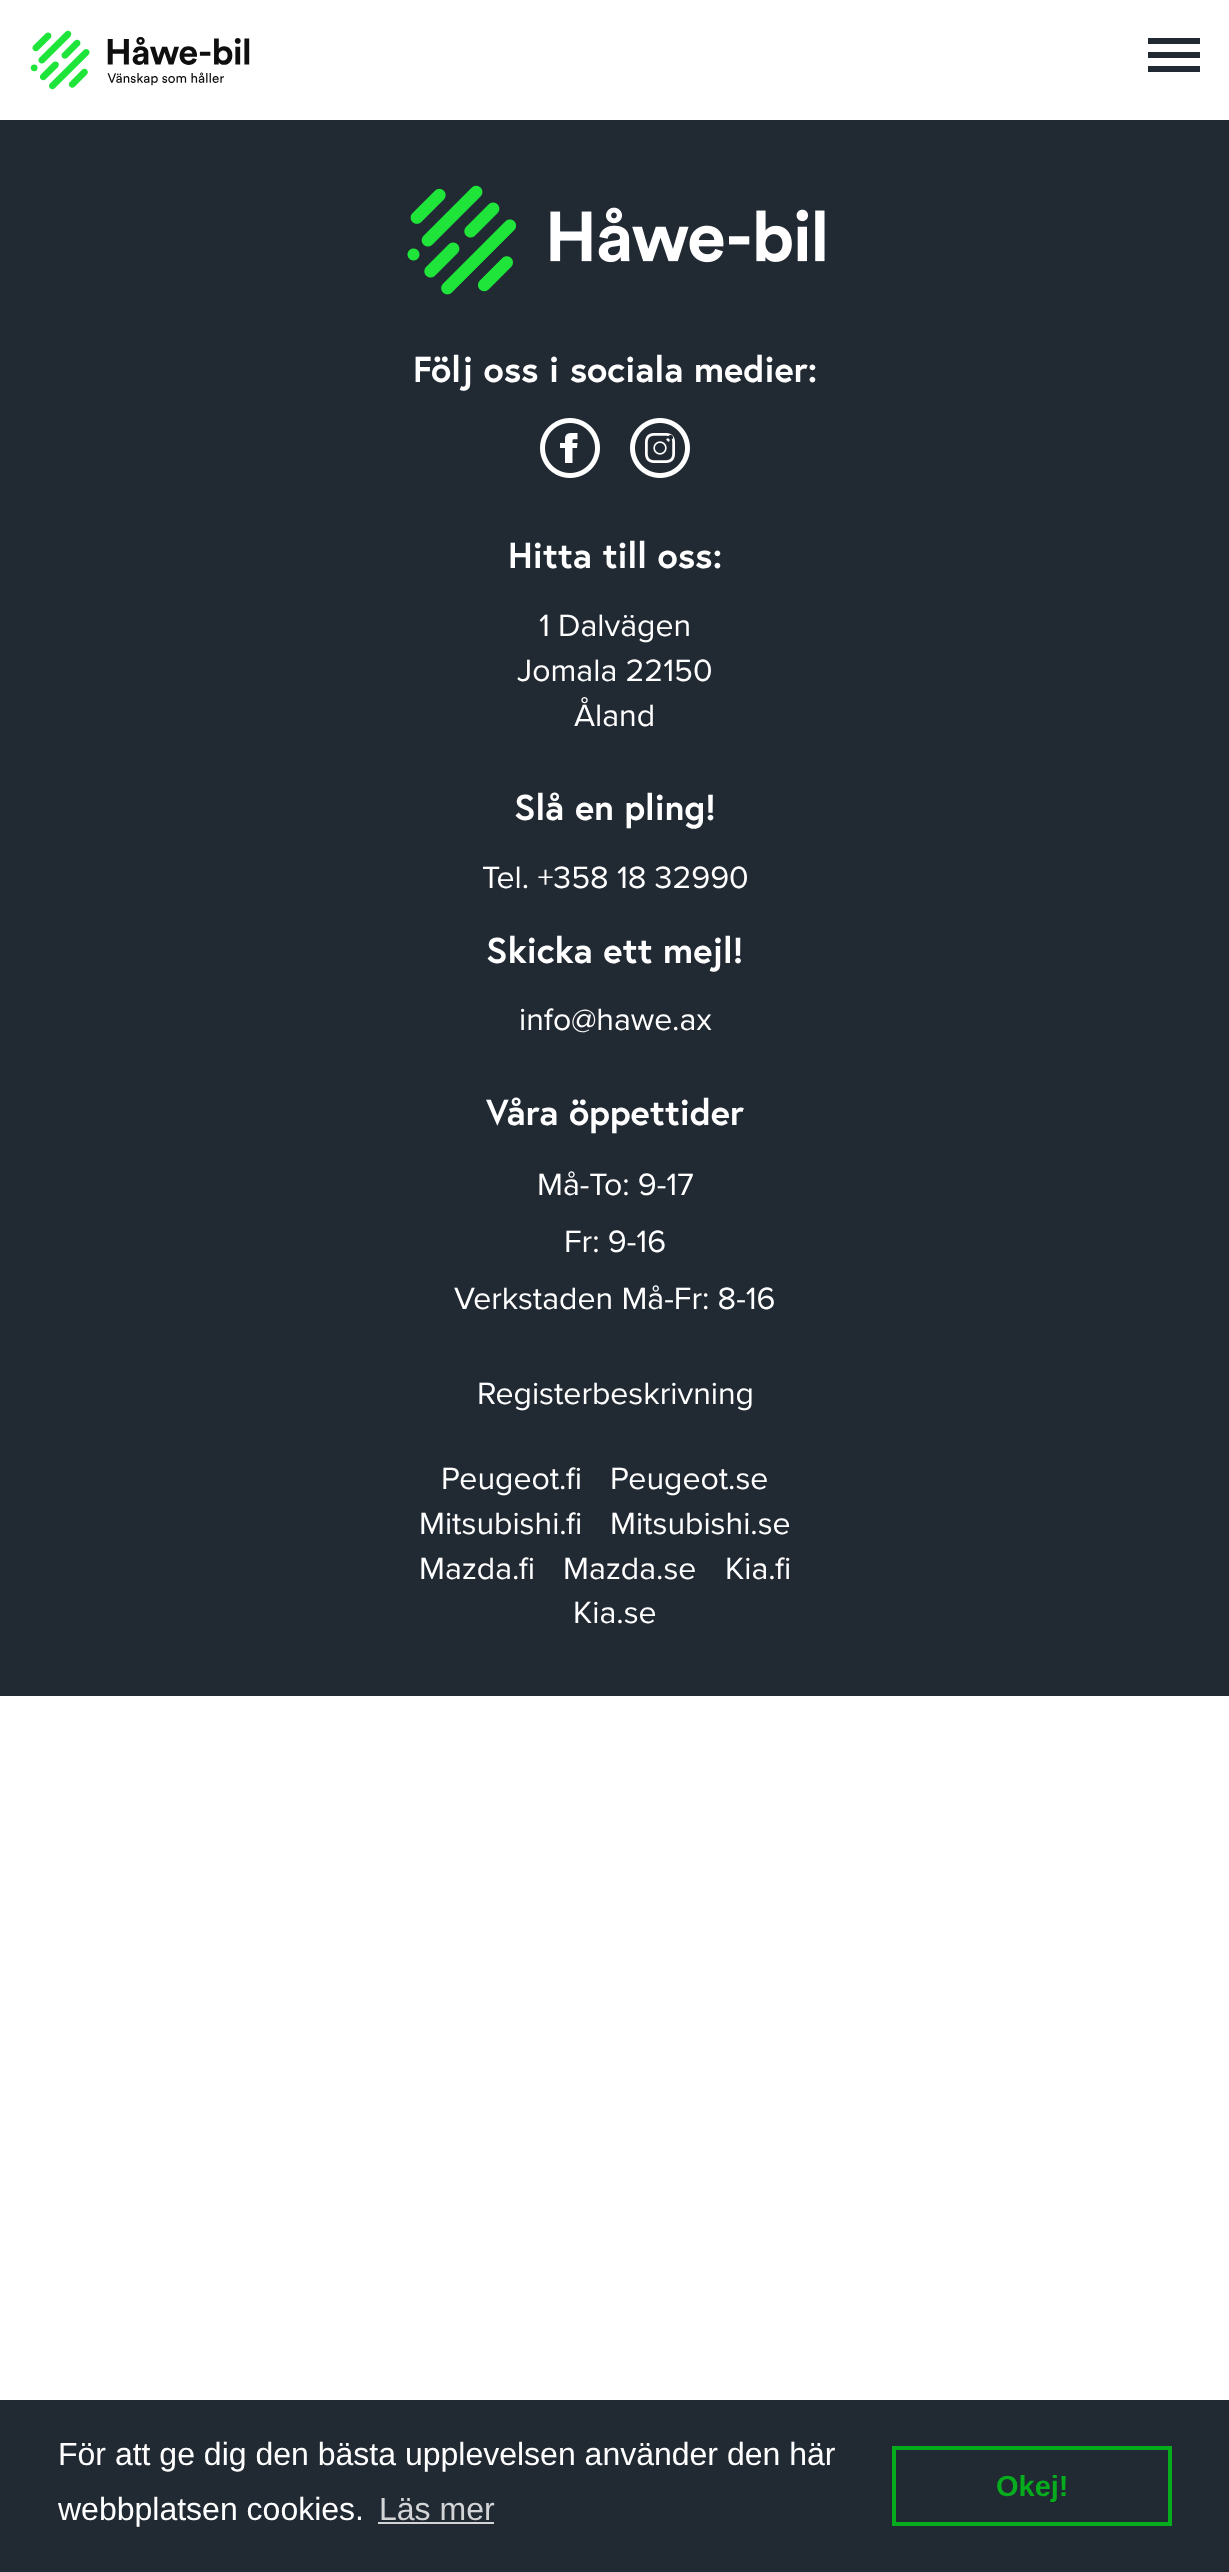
(async () => {
    const canvas = document.querySelector("canvas");
    canvas.width = 1229;
    canvas.height = 2572;
    const context = canvas.getContext("2d");
    context.miterLimit = 4;
    context.fontKerning = "normal";
    function write(s, x, y, font, color) {
        context.font = font;
        context.fillStyle = color;
        context.fillText(s, x, y);
    }
    function block(x, y, w, h, color) {
        context.fillStyle = color;
        context.fillRect(x, y, w, h);
    }
    async function photo(src, x, y, w, h) {
        const img = new Image();
        img.src = src;
        await img.decode();
        context.drawImage(img, x, y, w, h);
    }

    block(0, 0, 1229, 2572, "rgb(255, 255, 255)");
    await photo("media/1.png", 30, 30, 220, 60);
    block(1148, 38, 52, 6, "rgb(33, 41, 51)");
    block(1148, 52, 52, 6, "rgb(33, 41, 51)");
    block(1148, 66, 52, 6, "rgb(33, 41, 51)");
    block(0, 120, 1229, 1576, "rgb(33, 41, 51)");
    await photo("media/2.png", 407, 185, 418, 110);
    write("Följ oss i sociala medier:", 413, 382, "bold 36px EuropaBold", "rgb(255, 255, 255)");
    await photo("media/3.png", 540, 418, 60, 60);
    await photo("media/4.png", 630, 418, 60, 60);
    write("Hitta till oss:", 508, 568, "bold 36px EuropaBold", "rgb(255, 255, 255)");
    write("1 Dalvägen", 539, 636, "32px Proxima Nova", "rgb(255, 255, 255)");
    write("Jomala 22150", 517, 681, "32px Proxima Nova", "rgb(255, 255, 255)");
    write("Åland", 574, 726, "32px Proxima Nova", "rgb(255, 255, 255)");
    write("Slå en pling!", 514, 820, "bold 36px EuropaBold", "rgb(255, 255, 255)");
    write("Tel. +358 18 32990", 482, 888, "32px Proxima Nova", "rgb(255, 255, 255)");
    write("Skicka ett mejl!", 486, 963, "bold 36px EuropaBold", "rgb(255, 255, 255)");
    write("info@hawe.ax", 519, 1030, "32px Proxima Nova", "rgb(255, 255, 255)");
    write("Våra öppettider", 486, 1125, "bold 36px EuropaBold", "rgb(255, 255, 255)");
    write("Må-To: 9-17", 537, 1195, "32px Proxima Nova", "rgb(255, 255, 255)");
    write("Fr: 9-16", 564, 1252, "32px Proxima Nova", "rgb(255, 255, 255)");
    write("Verkstaden Må-Fr: 8-16", 454, 1309, "32px Proxima Nova", "rgb(255, 255, 255)");
    write("Registerbeskrivning", 477, 1404, "32px Proxima Nova", "rgb(255, 255, 255)");
    write("Peugeot.fi", 441, 1489, "32px Proxima Nova", "rgb(255, 255, 255)");
    write("Peugeot.se", 610, 1489, "32px Proxima Nova", "rgb(255, 255, 255)");
    write("Mitsubishi.fi", 419, 1534, "32px Proxima Nova", "rgb(255, 255, 255)");
    write("Mitsubishi.se", 610, 1534, "32px Proxima Nova", "rgb(255, 255, 255)");
    write("Mazda.fi", 419, 1579, "32px Proxima Nova", "rgb(255, 255, 255)");
    write("Mazda.se", 563, 1579, "32px Proxima Nova", "rgb(255, 255, 255)");
    write("Kia.fi", 725, 1579, "32px Proxima Nova", "rgb(255, 255, 255)");
    write("Kia.se", 573, 1623, "32px Proxima Nova", "rgb(255, 255, 255)");
    block(0, 2400, 1229, 172, "rgb(33, 41, 51)");
    write("För att ge dig den bästa upplevelsen använder den här", 58, 2465, "32px Liberation Sans", "rgb(255, 255, 255)");
    write("webbplatsen cookies.", 58, 2520, "32px Liberation Sans", "rgb(255, 255, 255)");
    write("Läs mer", 379, 2520, "32px Liberation Sans", "rgb(211, 212, 214)");
    block(378, 2522, 116, 2, "rgb(211, 212, 214)");
    context.strokeStyle = "rgb(6, 172, 29)";
    context.lineWidth = 4;
    context.strokeRect(894, 2448, 276, 76);
    write("Okej!", 996, 2496, "bold 29px Liberation Sans", "rgb(6, 172, 29)");
})();
